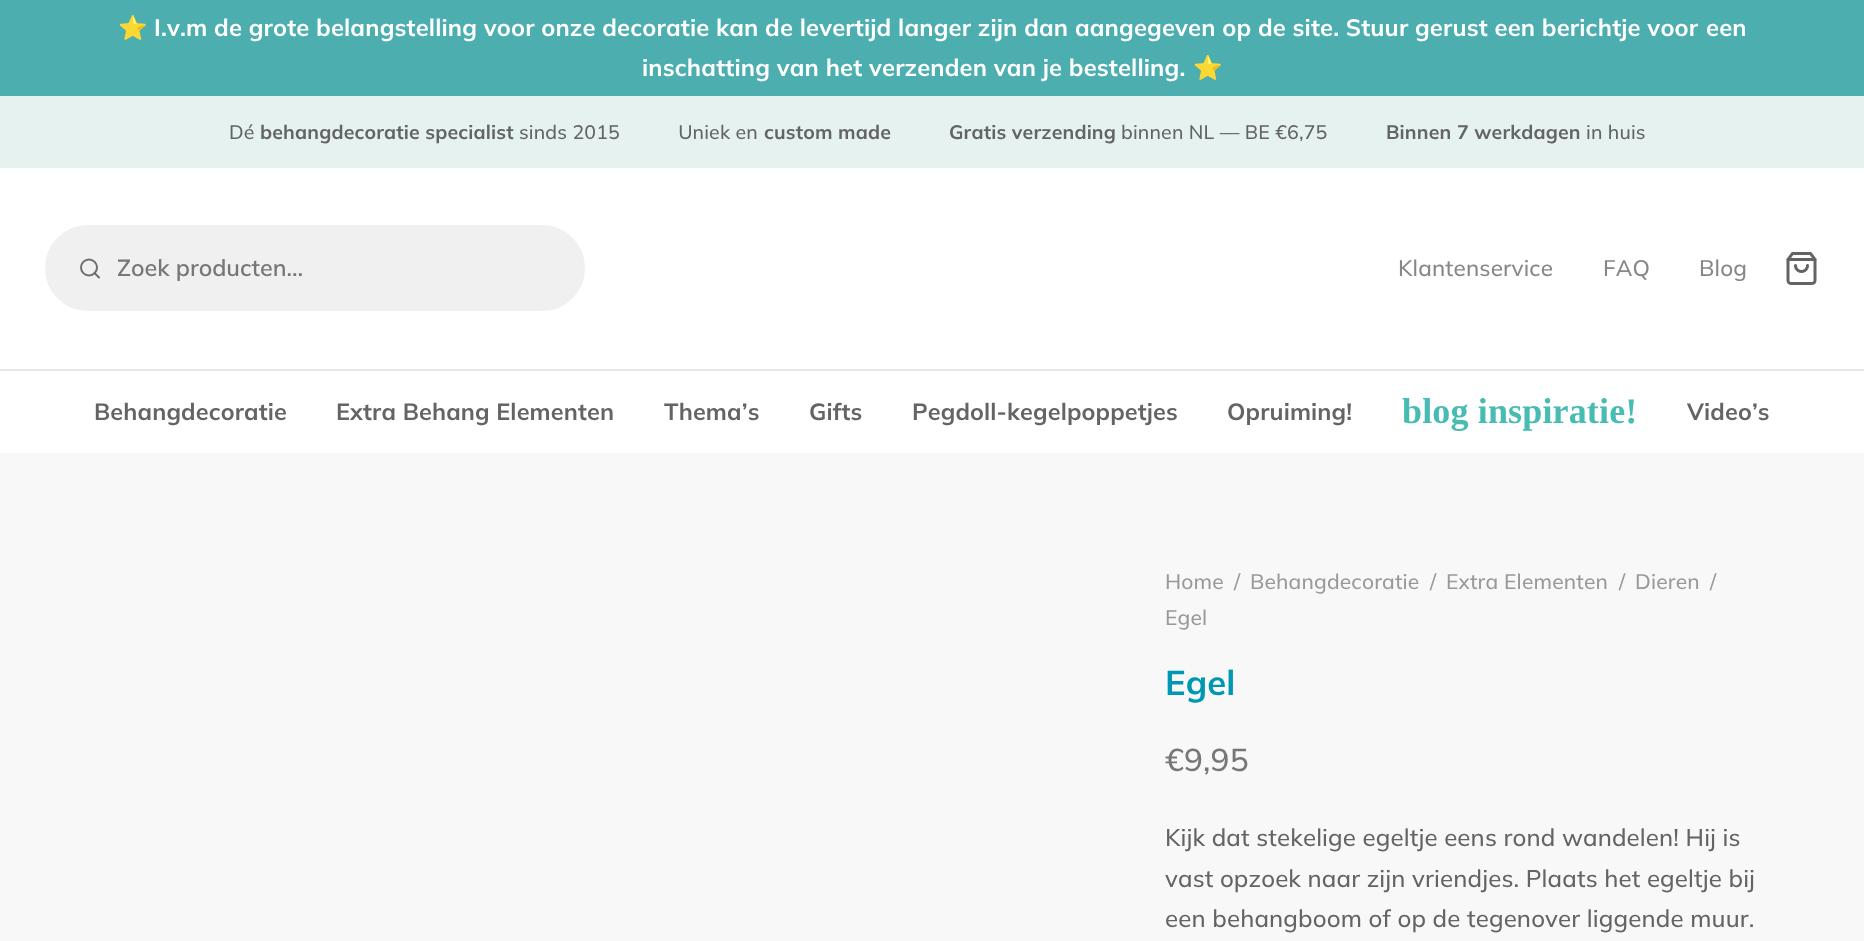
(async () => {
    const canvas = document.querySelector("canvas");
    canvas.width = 1864;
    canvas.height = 941;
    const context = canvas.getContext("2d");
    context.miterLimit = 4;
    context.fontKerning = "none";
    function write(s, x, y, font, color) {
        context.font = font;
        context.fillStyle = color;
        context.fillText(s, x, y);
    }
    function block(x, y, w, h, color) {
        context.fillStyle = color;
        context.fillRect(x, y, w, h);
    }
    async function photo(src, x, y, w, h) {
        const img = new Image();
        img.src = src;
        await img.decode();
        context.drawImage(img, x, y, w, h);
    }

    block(0, 0, 1864, 941, "rgb(229, 242, 239)");
    block(0, 0, 1864, 96, "rgb(77, 174, 176)");
    context.letterSpacing = "0.15px";
    write("⭐", 118, 36, "bold 23.7px Noto Color Emoji", "rgb(255, 255, 255)");
    write("I.v.m de grote belangstelling voor onze decoratie kan de levertijd langer zijn dan aangegeven op de site. Stuur gerust een berichtje voor", 154, 36, "bold 23.7px Mulish", "rgb(255, 255, 255)");
    write("een", 1706, 36, "bold 23.7px Mulish", "rgb(255, 255, 255)");
    write("inschatting van het verzenden van je bestelling.", 642, 76, "bold 23.7px Mulish", "rgb(255, 255, 255)");
    write("⭐", 1193, 76, "bold 23.7px Noto Color Emoji", "rgb(255, 255, 255)");
    write("Dé", 229, 139, "500 19.5px Mulish", "rgb(100, 100, 100)");
    write("behangdecoratie specialist", 260, 139, "bold 19.5px Mulish", "rgb(100, 100, 100)");
    write("sinds 2015           Uniek en", 519, 139, "500 19.5px Mulish", "rgb(100, 100, 100)");
    write("custom made", 764, 139, "bold 19.5px Mulish", "rgb(100, 100, 100)");
    write("Gratis verzending", 949, 139, "bold 19.5px Mulish", "rgb(100, 100, 100)");
    write("binnen NL — BE €6,75", 1121, 139, "500 19.5px Mulish", "rgb(100, 100, 100)");
    write("Binnen 7 werkdagen", 1386, 139, "bold 19.5px Mulish", "rgb(100, 100, 100)");
    write("in huis", 1586, 139, "500 19.5px Mulish", "rgb(100, 100, 100)");
    block(0, 168, 1864, 285, "rgb(255, 255, 255)");
    context.fillStyle = "rgb(240, 240, 240)";
    context.beginPath();
    context.roundRect(46.5, 226.5, 537, 83, 41.5);
    context.fill();
    context.strokeStyle = "rgb(240, 240, 240)";
    context.lineWidth = 3;
    context.stroke();
    context.beginPath();
    context.arc(89, 267.5, 8, 0, Math.PI * 2);
    context.strokeStyle = "rgb(110, 110, 110)";
    context.lineWidth = 2;
    context.stroke();
    context.beginPath();
    context.moveTo(99, 277.5);
    context.lineTo(94.5, 273);
    context.lineCap = "round";
    context.lineJoin = "round";
    context.stroke();
    context.letterSpacing = "0px";
    write("Zoek producten…", 117, 276, "600 23.25px Mulish", "rgb(119, 119, 119)");
    context.letterSpacing = "0.15px";
    write("Klantenservice", 1398, 276, "500 22.5px Mulish", "rgb(135, 135, 135)");
    write("FAQ", 1603, 276, "500 22.5px Mulish", "rgb(135, 135, 135)");
    write("Blog", 1699, 276, "500 22.5px Mulish", "rgb(135, 135, 135)");
    await photo("media/1.png", 1786, 252, 31, 33);
    block(0, 369, 1864, 2, "rgb(229, 229, 229)");
    write("Behangdecoratie", 94, 420, "bold 23.4px Mulish", "rgb(100, 100, 100)");
    write("Extra Behang Elementen", 336, 420, "bold 23.4px Mulish", "rgb(100, 100, 100)");
    write("Thema’s", 664, 420, "bold 23.4px Mulish", "rgb(100, 100, 100)");
    write("Gifts", 809, 420, "bold 23.4px Mulish", "rgb(100, 100, 100)");
    write("Pegdoll-kegelpoppetjes", 912, 420, "bold 23.4px Mulish", "rgb(100, 100, 100)");
    write("Opruiming!", 1227, 420, "bold 23.4px Mulish", "rgb(100, 100, 100)");
    write("blog inspiratie!", 1402, 423, "bold 36px Liberation Serif", "rgb(70, 188, 178)");
    write("Video’s", 1687, 420, "bold 23.4px Mulish", "rgb(100, 100, 100)");
    block(0, 453, 1864, 488, "rgb(248, 248, 248)");
    write("Home", 1165, 589, "500 21px Mulish", "rgb(153, 153, 153)");
    write("/", 1234, 589, "500 21px Mulish", "rgb(153, 153, 153)");
    write("Behangdecoratie", 1250, 589, "500 21px Mulish", "rgb(153, 153, 153)");
    write("/", 1430, 589, "500 21px Mulish", "rgb(153, 153, 153)");
    write("Extra Elementen", 1446, 589, "500 21px Mulish", "rgb(153, 153, 153)");
    write("/", 1619, 589, "500 21px Mulish", "rgb(153, 153, 153)");
    write("Dieren", 1635, 589, "500 21px Mulish", "rgb(153, 153, 153)");
    write("/", 1710, 589, "500 21px Mulish", "rgb(153, 153, 153)");
    write("Egel", 1165, 625, "500 21px Mulish", "rgb(153, 153, 153)");
    write("Egel", 1165, 695, "bold 34.5px Mulish", "rgb(0, 151, 178)");
    write("€9,95", 1165, 771, "500 31.5px Mulish", "rgb(119, 119, 119)");
    write("Kijk dat stekelige egeltje eens rond wandelen! Hij is", 1165, 846, "500 24px Mulish", "rgb(100, 100, 100)");
    write("vast opzoek naar zijn vriendjes. Plaats het egeltje bij", 1165, 887, "500 24px Mulish", "rgb(100, 100, 100)");
    write("een behangboom of op de tegenover liggende muur.", 1165, 927, "500 24px Mulish", "rgb(100, 100, 100)");
})();
